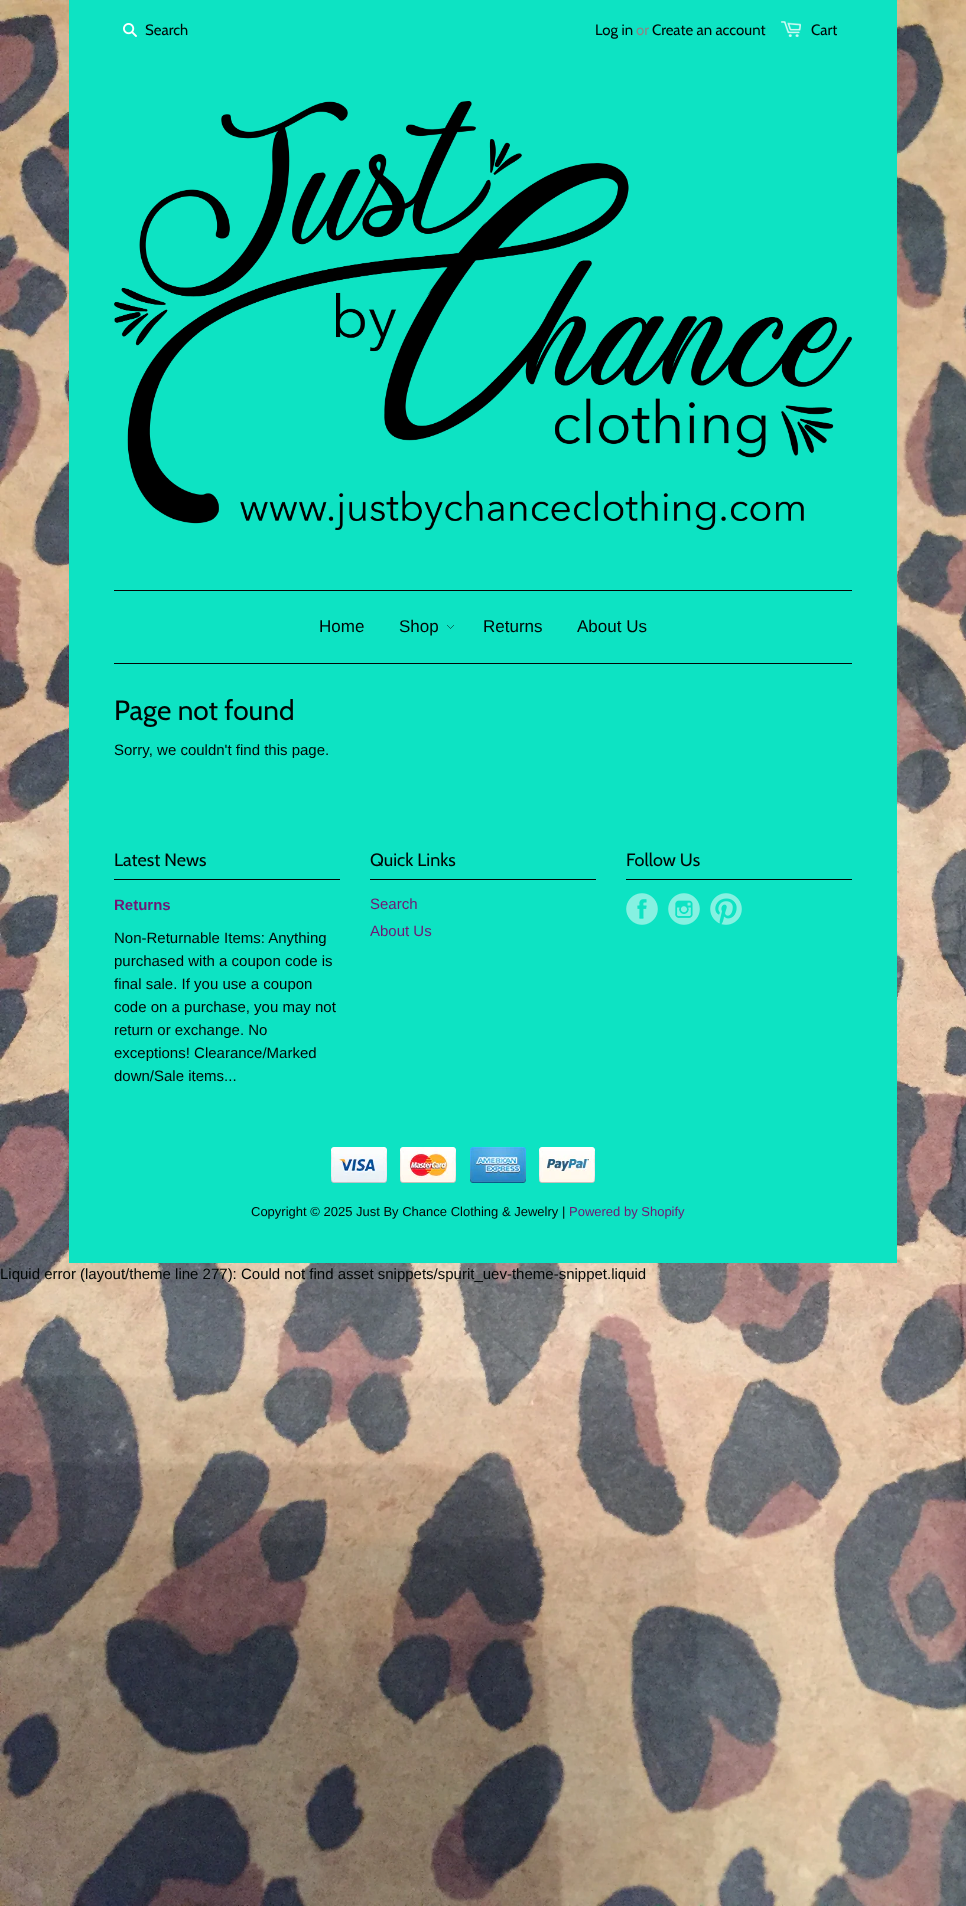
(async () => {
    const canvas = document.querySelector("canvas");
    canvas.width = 966;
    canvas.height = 1906;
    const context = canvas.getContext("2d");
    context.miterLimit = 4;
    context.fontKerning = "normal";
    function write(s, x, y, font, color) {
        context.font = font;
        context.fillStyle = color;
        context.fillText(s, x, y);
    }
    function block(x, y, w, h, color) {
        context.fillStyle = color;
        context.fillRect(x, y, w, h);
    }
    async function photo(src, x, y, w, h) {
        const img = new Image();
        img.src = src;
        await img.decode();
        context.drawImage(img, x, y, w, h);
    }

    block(0, 0, 966, 1906, "rgb(255, 255, 255)");
    await photo("media/1.png", 0, 0, 966, 1906);
    block(69, 0, 828, 1263, "rgb(13, 227, 195)");
    await photo("media/2.png", 123, 23, 14, 14);
    write("Search", 145, 35, "15px Cabin", "rgb(1, 5, 4)");
    write("Log in", 595, 35, "15px Cabin", "rgb(1, 5, 4)");
    write("or", 636, 35, "15px Cabin", "rgb(136, 136, 136)");
    write("Create an account", 652, 35, "15px Cabin", "rgb(1, 5, 4)");
    await photo("media/3.png", 781, 21, 20, 16);
    write("Cart", 811, 35, "15px Cabin", "rgb(1, 5, 4)");
    await photo("media/4.png", 114, 101, 738, 429);
    block(114, 590, 738, 1, "rgb(1, 5, 4)");
    block(114, 663, 738, 1, "rgb(1, 5, 4)");
    write("Home", 319, 632, "17px Liberation Sans", "rgb(1, 5, 4)");
    await photo("media/5.png", 447, 625, 7, 4);
    write("Shop", 399, 632, "17px Liberation Sans", "rgb(1, 5, 4)");
    write("Returns", 483, 632, "17px Liberation Sans", "rgb(1, 5, 4)");
    write("About Us", 577, 632, "17px Liberation Sans", "rgb(1, 5, 4)");
    write("Page not found", 114, 720, "28px Cabin", "rgb(1, 5, 4)");
    write("Sorry, we couldn't find this page.", 114, 755, "15px Liberation Sans", "rgb(1, 5, 4)");
    block(114, 879, 226, 1, "rgb(1, 5, 4)");
    write("Latest News", 114, 866, "18px Cabin", "rgb(1, 5, 4)");
    write("Returns", 114, 910, "bold 15px Liberation Sans", "rgb(114, 22, 117)");
    write("Non-Returnable Items: Anything", 114, 943, "15px Liberation Sans", "rgb(1, 5, 4)");
    write("purchased with a coupon code is", 114, 966, "15px Liberation Sans", "rgb(1, 5, 4)");
    write("final sale. If you use a coupon", 114, 989, "15px Liberation Sans", "rgb(1, 5, 4)");
    write("code on a purchase, you may not", 114, 1012, "15px Liberation Sans", "rgb(1, 5, 4)");
    write("return or exchange. No", 114, 1035, "15px Liberation Sans", "rgb(1, 5, 4)");
    write("exceptions! Clearance/Marked", 114, 1058, "15px Liberation Sans", "rgb(1, 5, 4)");
    write("down/Sale items...", 114, 1081, "15px Liberation Sans", "rgb(1, 5, 4)");
    block(370, 879, 226, 1, "rgb(1, 5, 4)");
    write("Quick Links", 370, 866, "18px Cabin", "rgb(1, 5, 4)");
    write("Search", 370, 909, "15px Liberation Sans", "rgb(114, 22, 117)");
    write("About Us", 370, 936, "15px Liberation Sans", "rgb(114, 22, 117)");
    block(626, 879, 226, 1, "rgb(1, 5, 4)");
    write("Follow Us", 626, 866, "18px Cabin", "rgb(1, 5, 4)");
    await photo("media/6.png", 626, 893, 32, 32);
    await photo("media/7.png", 668, 893, 32, 32);
    await photo("media/8.png", 710, 893, 32, 32);
    await photo("media/9.png", 331, 1147, 56, 36);
    await photo("media/10.png", 400, 1147, 56, 36);
    await photo("media/11.png", 470, 1147, 56, 36);
    await photo("media/12.png", 539, 1147, 56, 36);
    write("Copyright © 2025 Just By Chance Clothing & Jewelry |", 251, 1216, "13px Liberation Sans", "rgb(1, 5, 4)");
    write("Powered by Shopify", 569, 1216, "13px Liberation Sans", "rgb(114, 22, 117)");
    write("Liquid error (layout/theme line 277): Could not find asset snippets/spurit_uev-theme-snippet.liquid", 0, 1279, "15px Liberation Sans", "rgb(1, 5, 4)");
})();
